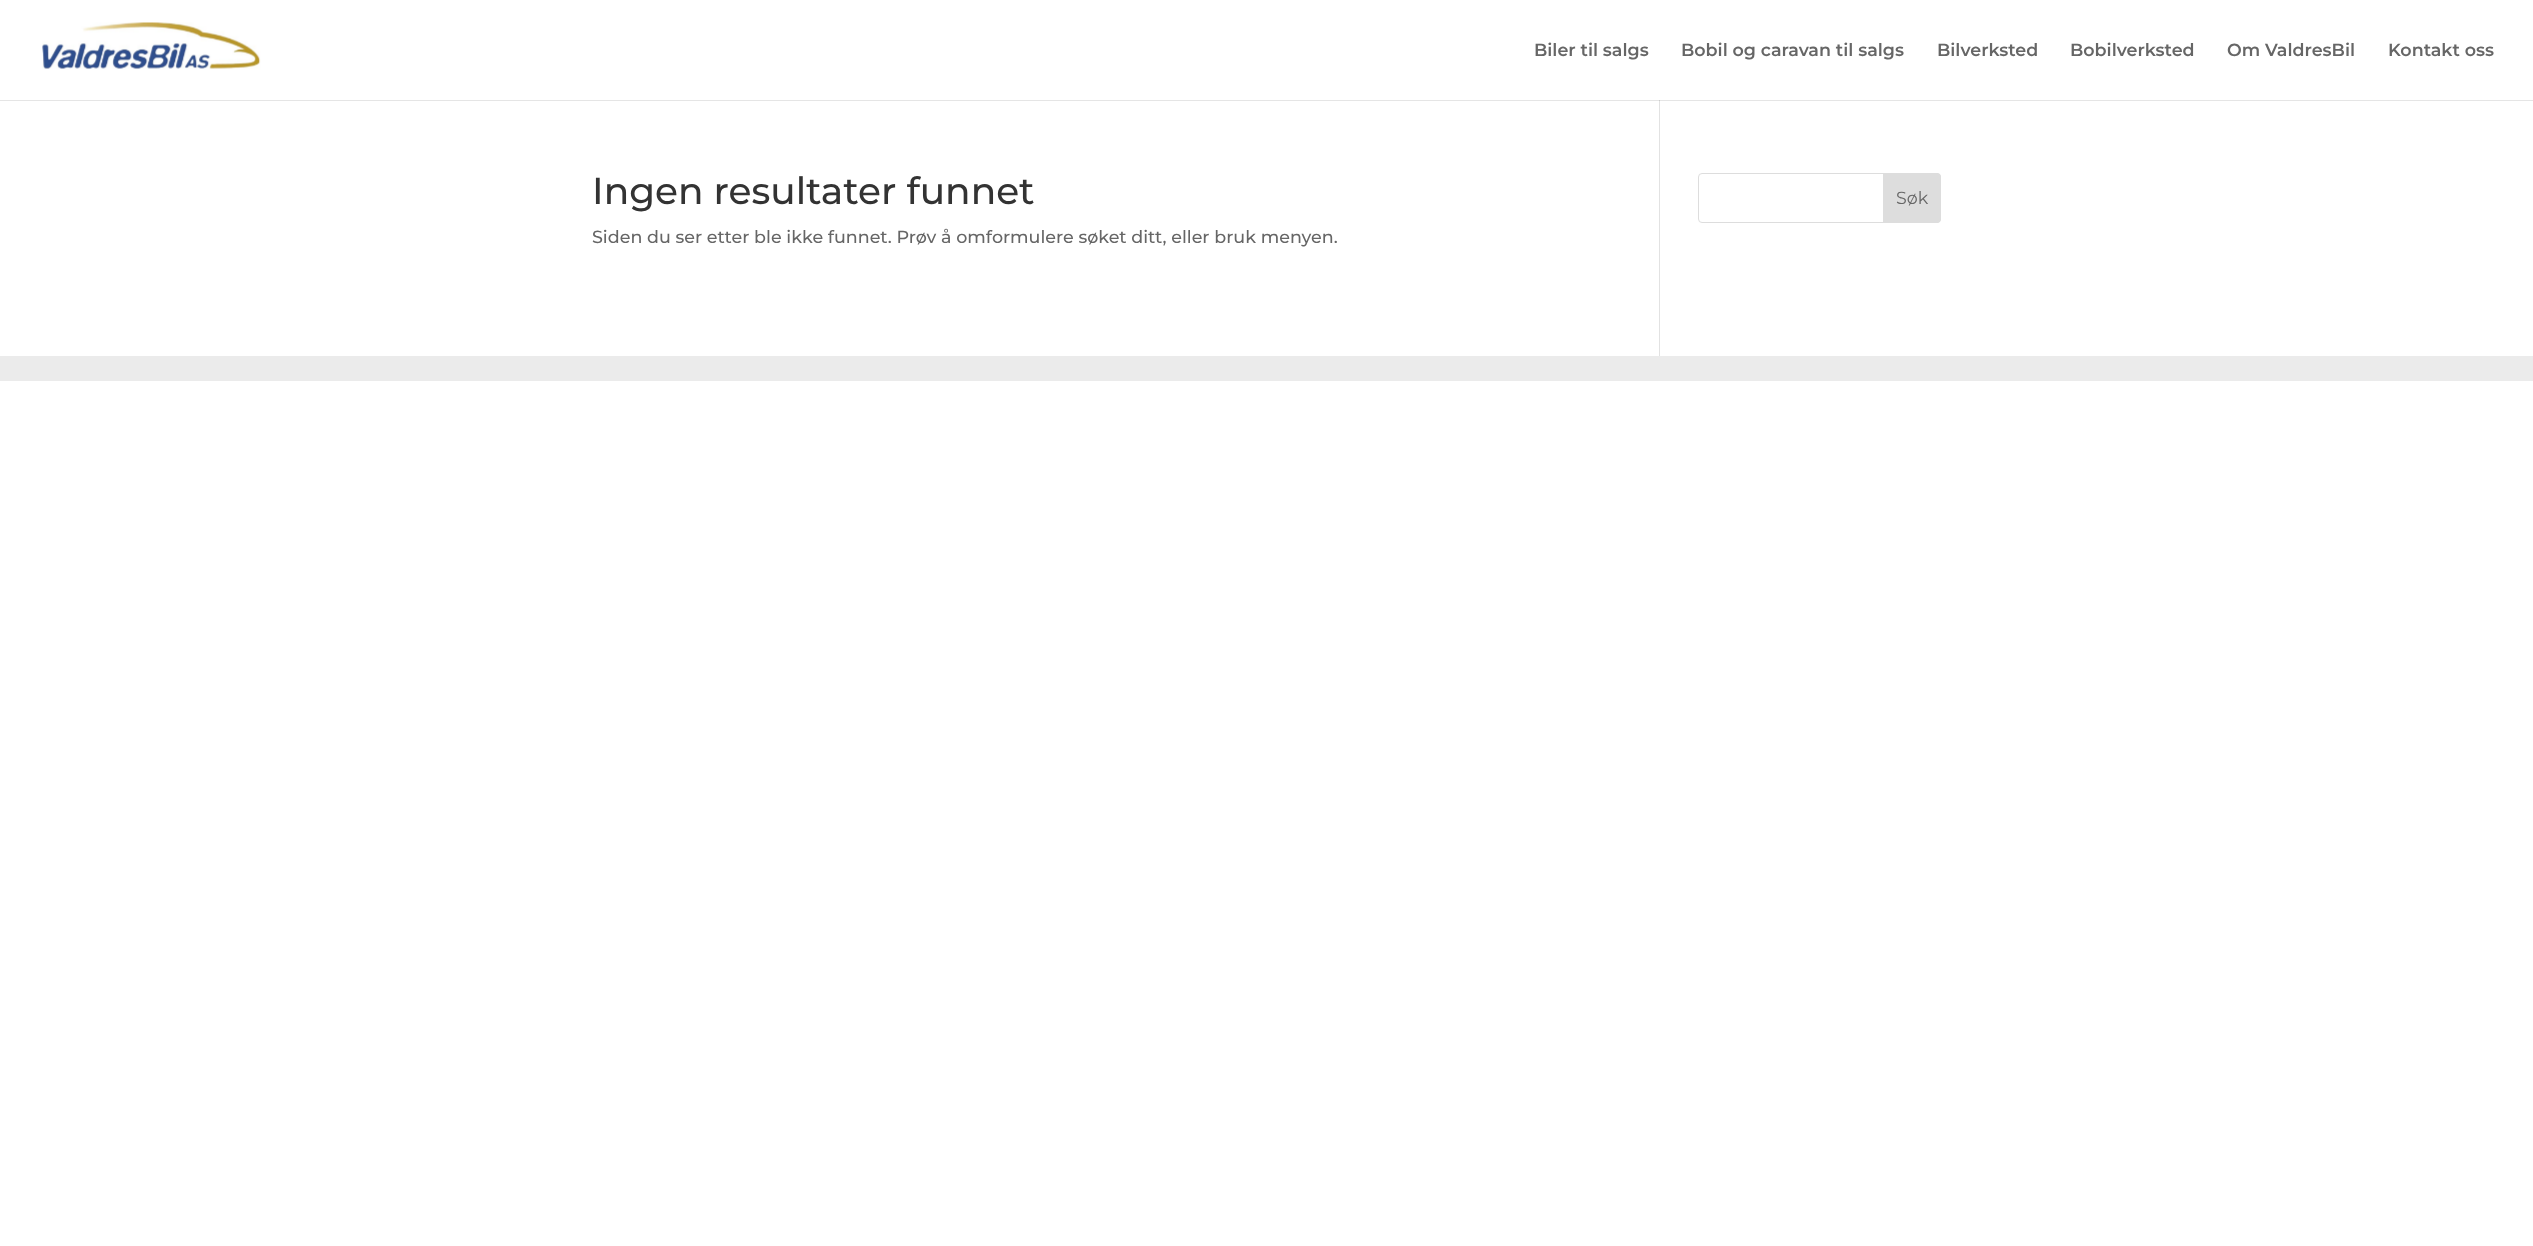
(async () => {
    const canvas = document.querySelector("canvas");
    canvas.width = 2533;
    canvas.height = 1246;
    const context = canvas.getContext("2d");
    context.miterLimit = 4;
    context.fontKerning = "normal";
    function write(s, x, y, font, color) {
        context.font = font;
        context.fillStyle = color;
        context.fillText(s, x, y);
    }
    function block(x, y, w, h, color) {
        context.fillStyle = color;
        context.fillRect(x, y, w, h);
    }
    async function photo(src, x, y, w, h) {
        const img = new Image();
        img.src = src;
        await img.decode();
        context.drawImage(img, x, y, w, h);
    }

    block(0, 0, 2533, 1246, "rgb(255, 255, 255)");
    block(1659, 100, 1, 256, "rgb(226, 226, 226)");
    context.fillStyle = "rgba(0, 0, 0, 0.1)";
    context.beginPath();
    context.moveTo(0, 100);
    context.lineTo(0, 101);
    context.lineTo(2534, 101);
    context.lineTo(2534, 1);
    context.lineTo(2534, 100);
    context.closePath();
    context.fill();
    await photo("media/1.png", 42, 22, 219, 48);
    write("Biler til salgs", 1534, 56, "600 17.5px Montserrat", "rgb(102, 102, 102)");
    write("Bobil og caravan til salgs", 1681, 56, "600 17.5px Montserrat", "rgb(102, 102, 102)");
    write("Bilverksted", 1937, 56, "600 17.5px Montserrat", "rgb(102, 102, 102)");
    write("Bobilverksted", 2070, 56, "600 17.5px Montserrat", "rgb(102, 102, 102)");
    write("Om ValdresBil", 2227, 56, "600 17.5px Montserrat", "rgb(102, 102, 102)");
    write("Kontakt oss", 2388, 56, "600 17.5px Montserrat", "rgb(102, 102, 102)");
    write("Ingen resultater funnet", 592, 204, "500 37.5px Montserrat", "rgb(51, 51, 51)");
    write("Siden du ser etter ble ikke funnet. Prøv å omformulere søket ditt, eller bruk menyen.", 592, 243, "500 17.5px Montserrat", "rgb(102, 102, 102)");
    context.beginPath();
    context.roundRect(1698.5, 173.5, 242, 49, 3.5);
    context.strokeStyle = "rgb(221, 221, 221)";
    context.stroke();
    context.fillStyle = "rgb(221, 221, 221)";
    context.beginPath();
    context.roundRect(1883.5, 173.5, 57, 49, [0, 3.5, 3.5, 0]);
    context.fill();
    context.stroke();
    write("Søk", 1896, 204, "17.5px Montserrat", "rgb(102, 102, 102)");
    block(0, 356, 2533, 25, "rgb(235, 235, 235)");
})();
